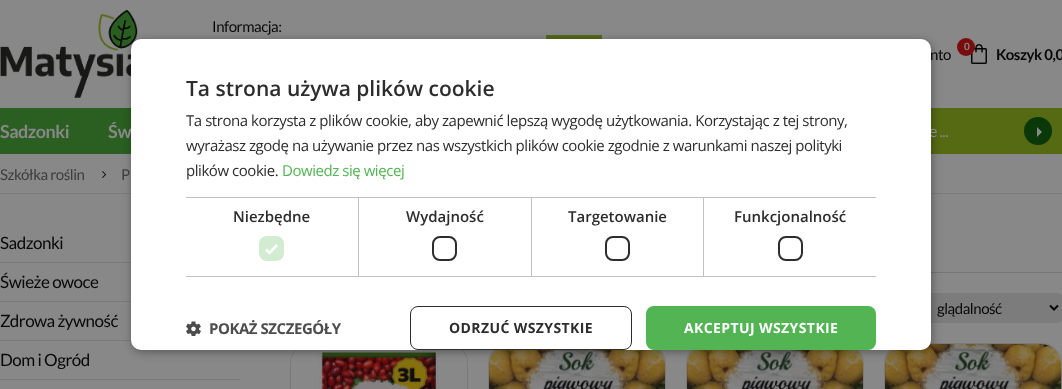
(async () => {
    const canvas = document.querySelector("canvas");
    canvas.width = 1062;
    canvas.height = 389;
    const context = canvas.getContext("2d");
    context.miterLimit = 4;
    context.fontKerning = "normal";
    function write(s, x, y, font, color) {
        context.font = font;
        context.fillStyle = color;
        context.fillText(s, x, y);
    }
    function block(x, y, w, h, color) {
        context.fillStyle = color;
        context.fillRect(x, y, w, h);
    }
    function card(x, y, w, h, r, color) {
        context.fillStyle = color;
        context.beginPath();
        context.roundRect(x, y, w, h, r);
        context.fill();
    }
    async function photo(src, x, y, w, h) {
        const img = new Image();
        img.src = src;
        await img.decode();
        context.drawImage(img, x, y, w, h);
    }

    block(0, 0, 1062, 389, "rgb(136, 136, 136)");
    await photo("media/1.png", 0, 10, 138, 88);
    context.letterSpacing = "-0.45px";
    write("Informacja:", 212, 32, "15px Lato", "rgb(9, 9, 9)");
    await photo("media/2.png", 546, 35, 56, 4);
    write("nto", 930, 60, "15px Lato", "rgb(9, 9, 9)");
    await photo("media/3.png", 971, 44, 16, 20);
    context.fillStyle = "rgb(122, 12, 12)";
    context.beginPath();
    context.arc(966, 47, 9, 0, Math.PI * 2);
    context.fill();
    context.letterSpacing = "0px";
    write("0", 964, 50, "bold 10px Lato", "rgb(136, 136, 136)");
    context.letterSpacing = "-0.45px";
    write("Koszyk 0,0", 996, 60, "bold 15px Lato", "rgb(9, 9, 9)");
    block(0, 108, 131, 46, "rgb(42, 95, 33)");
    block(931, 108, 131, 46, "rgb(85, 106, 19)");
    block(0, 193, 1062, 1, "rgb(124, 124, 124)");
    block(0, 262, 131, 1, "rgb(122, 122, 122)");
    block(0, 301, 131, 1, "rgb(122, 122, 122)");
    block(0, 340, 132, 1, "rgb(122, 122, 122)");
    block(931, 272, 131, 1, "rgb(117, 117, 117)");
    card(913, 293, 149, 30, 5, "rgb(124, 124, 124)");
    context.beginPath();
    context.roundRect(290.5, 343.5, 177, 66, 19.5);
    context.strokeStyle = "rgb(122, 122, 122)";
    context.stroke();
    await photo("media/6.png", 291, 351, 176, 38);
    context.beginPath();
    context.roundRect(488.5, 343.5, 177, 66, 19.5);
    context.stroke();
    await photo("media/7.png", 489, 350, 176, 39);
    context.beginPath();
    context.roundRect(686.5, 343.5, 177, 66, 19.5);
    context.stroke();
    await photo("media/8.png", 687, 350, 176, 39);
    context.beginPath();
    context.roundRect(884.5, 343.5, 177, 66, 19.5);
    context.stroke();
    await photo("media/9.png", 885, 344, 176, 45);
    context.fillStyle = "rgba(0, 0, 0, 0.35)";
    context.filter = "blur(4px)";
    context.beginPath();
    context.roundRect(132, 41, 800, 311, 10);
    context.fill();
    context.filter = "none";
    context.letterSpacing = "-0.5px";
    write("Św", 108, 138, "bold 18px Lato", "rgb(136, 136, 136)");
    write("e ...", 929, 137, "16px Lato", "rgb(136, 136, 136)");
    card(131, 39, 800, 311, 10, "rgb(255, 255, 255)");
    context.letterSpacing = "0px";
    write("Ta strona używa plików cookie", 186, 96, "600 21px Open Sans", "rgb(45, 45, 45)");
    context.letterSpacing = "-0.45px";
    write("Ta strona korzysta z plików cookie, aby zapewnić lepszą wygodę użytkowania. Korzystając z tej strony,", 186, 126, "15px Open Sans", "rgb(45, 45, 45)");
    write("wyrażasz zgodę na używanie przez nas wszystkich plików cookie zgodnie z warunkami naszej polityki", 186, 151, "15px Open Sans", "rgb(45, 45, 45)");
    write("plików cookie.", 186, 176, "15px Open Sans", "rgb(45, 45, 45)");
    write("Dowiedz się więcej", 282, 176, "15px Open Sans", "rgb(82, 180, 83)");
    block(186, 197, 690, 1, "rgb(192, 192, 192)");
    block(358, 197, 1, 80, "rgb(192, 192, 192)");
    block(186, 276, 173, 1, "rgb(192, 192, 192)");
    context.letterSpacing = "0px";
    write("Niezbędne", 233, 222, "600 15px Open Sans", "rgb(45, 45, 45)");
    card(259, 236, 25, 25, 8, "rgb(210, 236, 210)");
    context.beginPath();
    context.moveTo(266, 249.5);
    context.lineTo(269.5, 253);
    context.lineTo(277, 245);
    context.strokeStyle = "rgb(255, 255, 255)";
    context.lineWidth = 2.6;
    context.stroke();
    block(531, 197, 1, 80, "rgb(192, 192, 192)");
    block(359, 276, 173, 1, "rgb(192, 192, 192)");
    write("Wydajność", 406, 222, "600 15px Open Sans", "rgb(45, 45, 45)");
    context.beginPath();
    context.roundRect(433, 237, 23, 23, 7);
    context.strokeStyle = "rgb(45, 45, 45)";
    context.lineWidth = 2;
    context.stroke();
    block(703, 197, 1, 80, "rgb(192, 192, 192)");
    block(532, 276, 344, 1, "rgb(192, 192, 192)");
    write("Targetowanie", 568, 222, "600 15px Open Sans", "rgb(45, 45, 45)");
    context.beginPath();
    context.roundRect(606, 237, 23, 23, 7);
    context.stroke();
    write("Funkcjonalność", 734, 222, "600 15px Open Sans", "rgb(45, 45, 45)");
    context.beginPath();
    context.roundRect(779, 237, 23, 23, 7);
    context.stroke();
    await photo("media/4.png", 186, 321, 15, 15);
    context.letterSpacing = "-0.45px";
    write("POKAŻ SZCZEGÓŁY", 209, 334, "bold 15px Open Sans", "rgb(77, 77, 77)");
    context.beginPath();
    context.roundRect(410.5, 306.5, 221, 43, 7.5);
    context.lineWidth = 1;
    context.stroke();
    context.letterSpacing = "0.4px";
    write("ODRZUĆ WSZYSTKIE", 449, 333, "bold 14px Open Sans", "rgb(45, 45, 45)");
    card(646, 306, 230, 44, 8, "rgb(82, 180, 83)");
    write("AKCEPTUJ WSZYSTKIE", 684, 333, "bold 14px Open Sans", "rgb(255, 255, 255)");
    context.letterSpacing = "-0.5px";
    write("Sadzonki", 0, 138, "bold 18px Lato", "rgb(136, 136, 136)");
    context.fillStyle = "rgb(9, 56, 9)";
    context.beginPath();
    context.arc(1038, 131, 14, 0, Math.PI * 2);
    context.fill();
    context.fillStyle = "rgb(136, 136, 136)";
    context.beginPath();
    context.moveTo(1037, 137);
    context.lineTo(1037, 127);
    context.lineTo(1042, 132);
    context.closePath();
    context.fill();
    context.letterSpacing = "-0.45px";
    write("Szkółka roślin", 0, 180, "15px Lato", "rgb(61, 61, 61)");
    await photo("media/5.png", 102, 171, 5, 7);
    write("P", 121, 180, "15px Lato", "rgb(61, 61, 61)");
    context.letterSpacing = "-0.5px";
    write("Sadzonki", 0, 249, "17px Lato", "rgb(9, 9, 9)");
    write("Świeże owoce", 0, 288, "17px Lato", "rgb(9, 9, 9)");
    write("Zdrowa żywność", 0, 327, "17px Lato", "rgb(9, 9, 9)");
    block(0, 379, 240, 1, "rgb(122, 122, 122)");
    write("Dom i Ogród", 0, 366, "17px Lato", "rgb(9, 9, 9)");
    context.beginPath();
    context.moveTo(1050, 305.5);
    context.lineTo(1054, 309.5);
    context.lineTo(1058, 305.5);
    context.strokeStyle = "rgb(9, 9, 9)";
    context.lineWidth = 2;
    context.stroke();
    context.letterSpacing = "-0.45px";
    write("glądalność", 937, 314, "15px Lato", "rgb(9, 9, 9)");
})();
